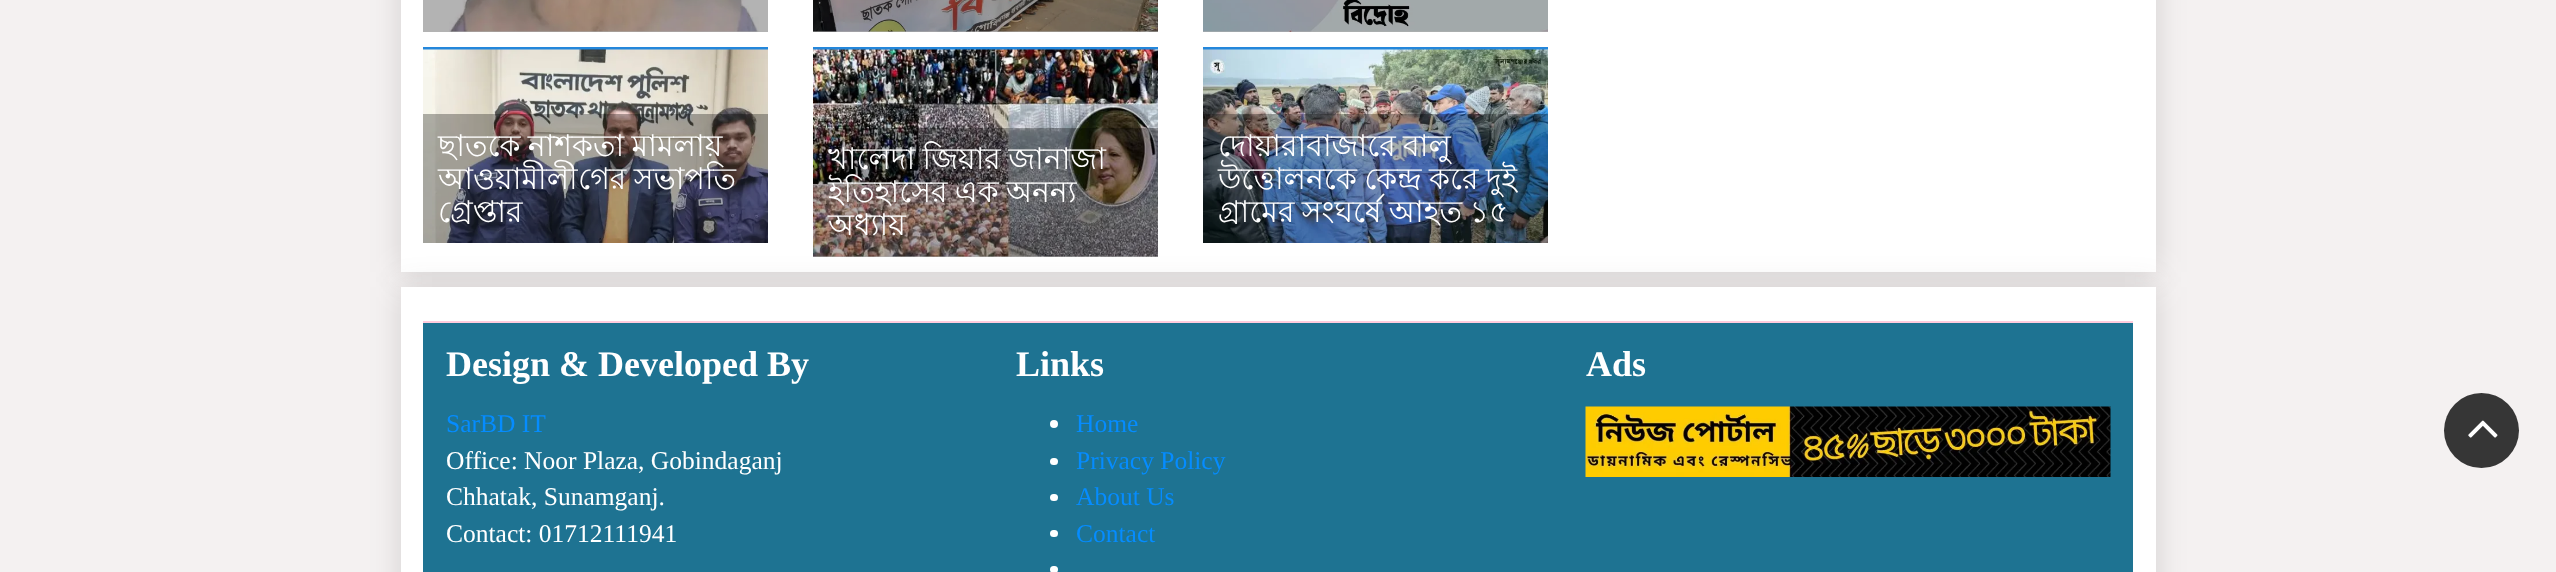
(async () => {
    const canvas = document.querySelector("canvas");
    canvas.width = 2556;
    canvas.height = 572;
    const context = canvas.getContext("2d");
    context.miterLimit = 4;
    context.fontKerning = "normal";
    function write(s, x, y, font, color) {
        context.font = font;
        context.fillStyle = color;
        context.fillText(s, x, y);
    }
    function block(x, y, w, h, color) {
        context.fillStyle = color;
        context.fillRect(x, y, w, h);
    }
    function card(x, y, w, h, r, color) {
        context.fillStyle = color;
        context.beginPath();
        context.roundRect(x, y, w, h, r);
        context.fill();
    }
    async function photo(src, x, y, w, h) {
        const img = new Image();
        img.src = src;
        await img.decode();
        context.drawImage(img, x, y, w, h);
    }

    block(0, 0, 2556, 572, "rgb(244, 241, 241)");
    context.fillStyle = "rgba(47, 44, 44, 0.16)";
    context.filter = "blur(15px)";
    context.beginPath();
    context.rect(401, -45, 1755, 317);
    context.fill();
    context.filter = "none";
    block(401, 0, 1755, 272, "rgb(255, 255, 255)");
    block(1203, 31, 345, 1, "rgb(179, 179, 179)");
    block(813, 31, 345, 1, "rgb(179, 179, 179)");
    block(423, 0, 345, 32, "rgb(179, 179, 179)");
    await photo("media/1.png", 449, 0, 310, 32);
    await photo("media/2.png", 813, 0, 345, 32);
    await photo("media/3.png", 1203, 0, 345, 32);
    block(423, 47, 345, 3, "rgb(36, 135, 219)");
    context.fillStyle = "rgba(47, 44, 44, 0.16)";
    context.filter = "blur(15px)";
    context.beginPath();
    context.rect(401, 287, 1755, 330);
    context.fill();
    context.filter = "none";
    await photo("media/4.png", 423, 49, 345, 194);
    block(423, 114, 345, 129, "rgba(0, 0, 0, 0.3)");
    context.wordSpacing = "-1px";
    write("ছাতকে নাশকতা মামলায়", 438, 156, "30px Lohit Bengali", "rgb(255, 255, 255)");
    context.wordSpacing = "0px";
    write("আওয়ামীলী", 438, 189, "30px Lohit Bengali", "rgb(255, 255, 255)");
    context.wordSpacing = "-1px";
    write("গের সভাপ", 578, 189, "30px Lohit Bengali", "rgb(255, 255, 255)");
    context.wordSpacing = "0px";
    write("তি", 705, 189, "30px Lohit Bengali", "rgb(255, 255, 255)");
    write("গ্রেপ্তার", 438, 222, "30px Lohit Bengali", "rgb(255, 255, 255)");
    block(813, 47, 345, 3, "rgb(36, 135, 219)");
    await photo("media/5.png", 813, 49, 345, 208);
    block(813, 128, 345, 129, "rgba(0, 0, 0, 0.3)");
    context.wordSpacing = "-1px";
    write("খালেদা জিয়ার জানাজা", 828, 169, "30px Lohit Bengali", "rgb(255, 255, 255)");
    write("ইতিহাসের এক অনন্য", 828, 202, "30px Lohit Bengali", "rgb(255, 255, 255)");
    context.wordSpacing = "0px";
    write("অধ্যায়", 828, 235, "30px Lohit Bengali", "rgb(255, 255, 255)");
    block(1203, 47, 345, 3, "rgb(36, 135, 219)");
    await photo("media/6.png", 1203, 49, 345, 194);
    block(1203, 114, 345, 129, "rgba(0, 0, 0, 0.3)");
    context.wordSpacing = "-1px";
    write("দোয়ারাবাজারে বালু", 1218, 156, "30px Lohit Bengali", "rgb(255, 255, 255)");
    write("উত্তোলনকে কেন্দ্র করে দুই", 1218, 189, "30px Lohit Bengali", "rgb(255, 255, 255)");
    write("গ্রামের সংঘর্ষে আহত ১৫", 1218, 222, "30px Lohit Bengali", "rgb(255, 255, 255)");
    block(401, 287, 1755, 285, "rgb(255, 255, 255)");
    block(423, 323, 1710, 249, "rgb(30, 115, 146)");
    block(423, 321, 1710, 2, "rgb(255, 204, 221)");
    context.wordSpacing = "0px";
    write("Design & Developed By", 446, 376, "bold 36px Liberation Serif", "rgb(255, 255, 255)");
    write("SarBD IT", 446, 432, "25.5px Liberation Serif", "rgb(5, 140, 255)");
    write("Office: Noor Plaza, Gobindaganj", 446, 469, "25.5px Liberation Serif", "rgb(255, 255, 255)");
    write("Chhatak, Sunamganj.", 446, 505, "25.5px Liberation Serif", "rgb(255, 255, 255)");
    write("Contact: 01712111941", 446, 542, "25.5px Liberation Serif", "rgb(255, 255, 255)");
    write("Links", 1016, 376, "bold 36px Liberation Serif", "rgb(255, 255, 255)");
    context.beginPath();
    context.arc(1054, 424, 4, 0, Math.PI * 2);
    context.fill();
    write("Home", 1076, 432, "25.5px Liberation Serif", "rgb(5, 140, 255)");
    card(1050, 458, 8, 7, 3.5, "rgb(255, 255, 255)");
    write("Privacy Policy", 1076, 469, "25.5px Liberation Serif", "rgb(5, 140, 255)");
    card(1050, 494, 8, 7, 3.5, "rgb(255, 255, 255)");
    write("About Us", 1076, 505, "25.5px Liberation Serif", "rgb(5, 140, 255)");
    card(1050, 530, 8, 7, 3.5, "rgb(255, 255, 255)");
    write("Contact", 1076, 542, "25.5px Liberation Serif", "rgb(5, 140, 255)");
    card(1050, 566, 8, 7, 3.5, "rgb(255, 255, 255)");
    write("Ads", 1586, 376, "bold 36px Liberation Serif", "rgb(255, 255, 255)");
    await photo("media/7.png", 1585, 406, 526, 71);
    context.fillStyle = "rgb(54, 54, 54)";
    context.beginPath();
    context.arc(2481.5, 430.5, 37.5, 0, Math.PI * 2);
    context.fill();
    await photo("media/8.png", 2468, 420, 30, 18);
})();
